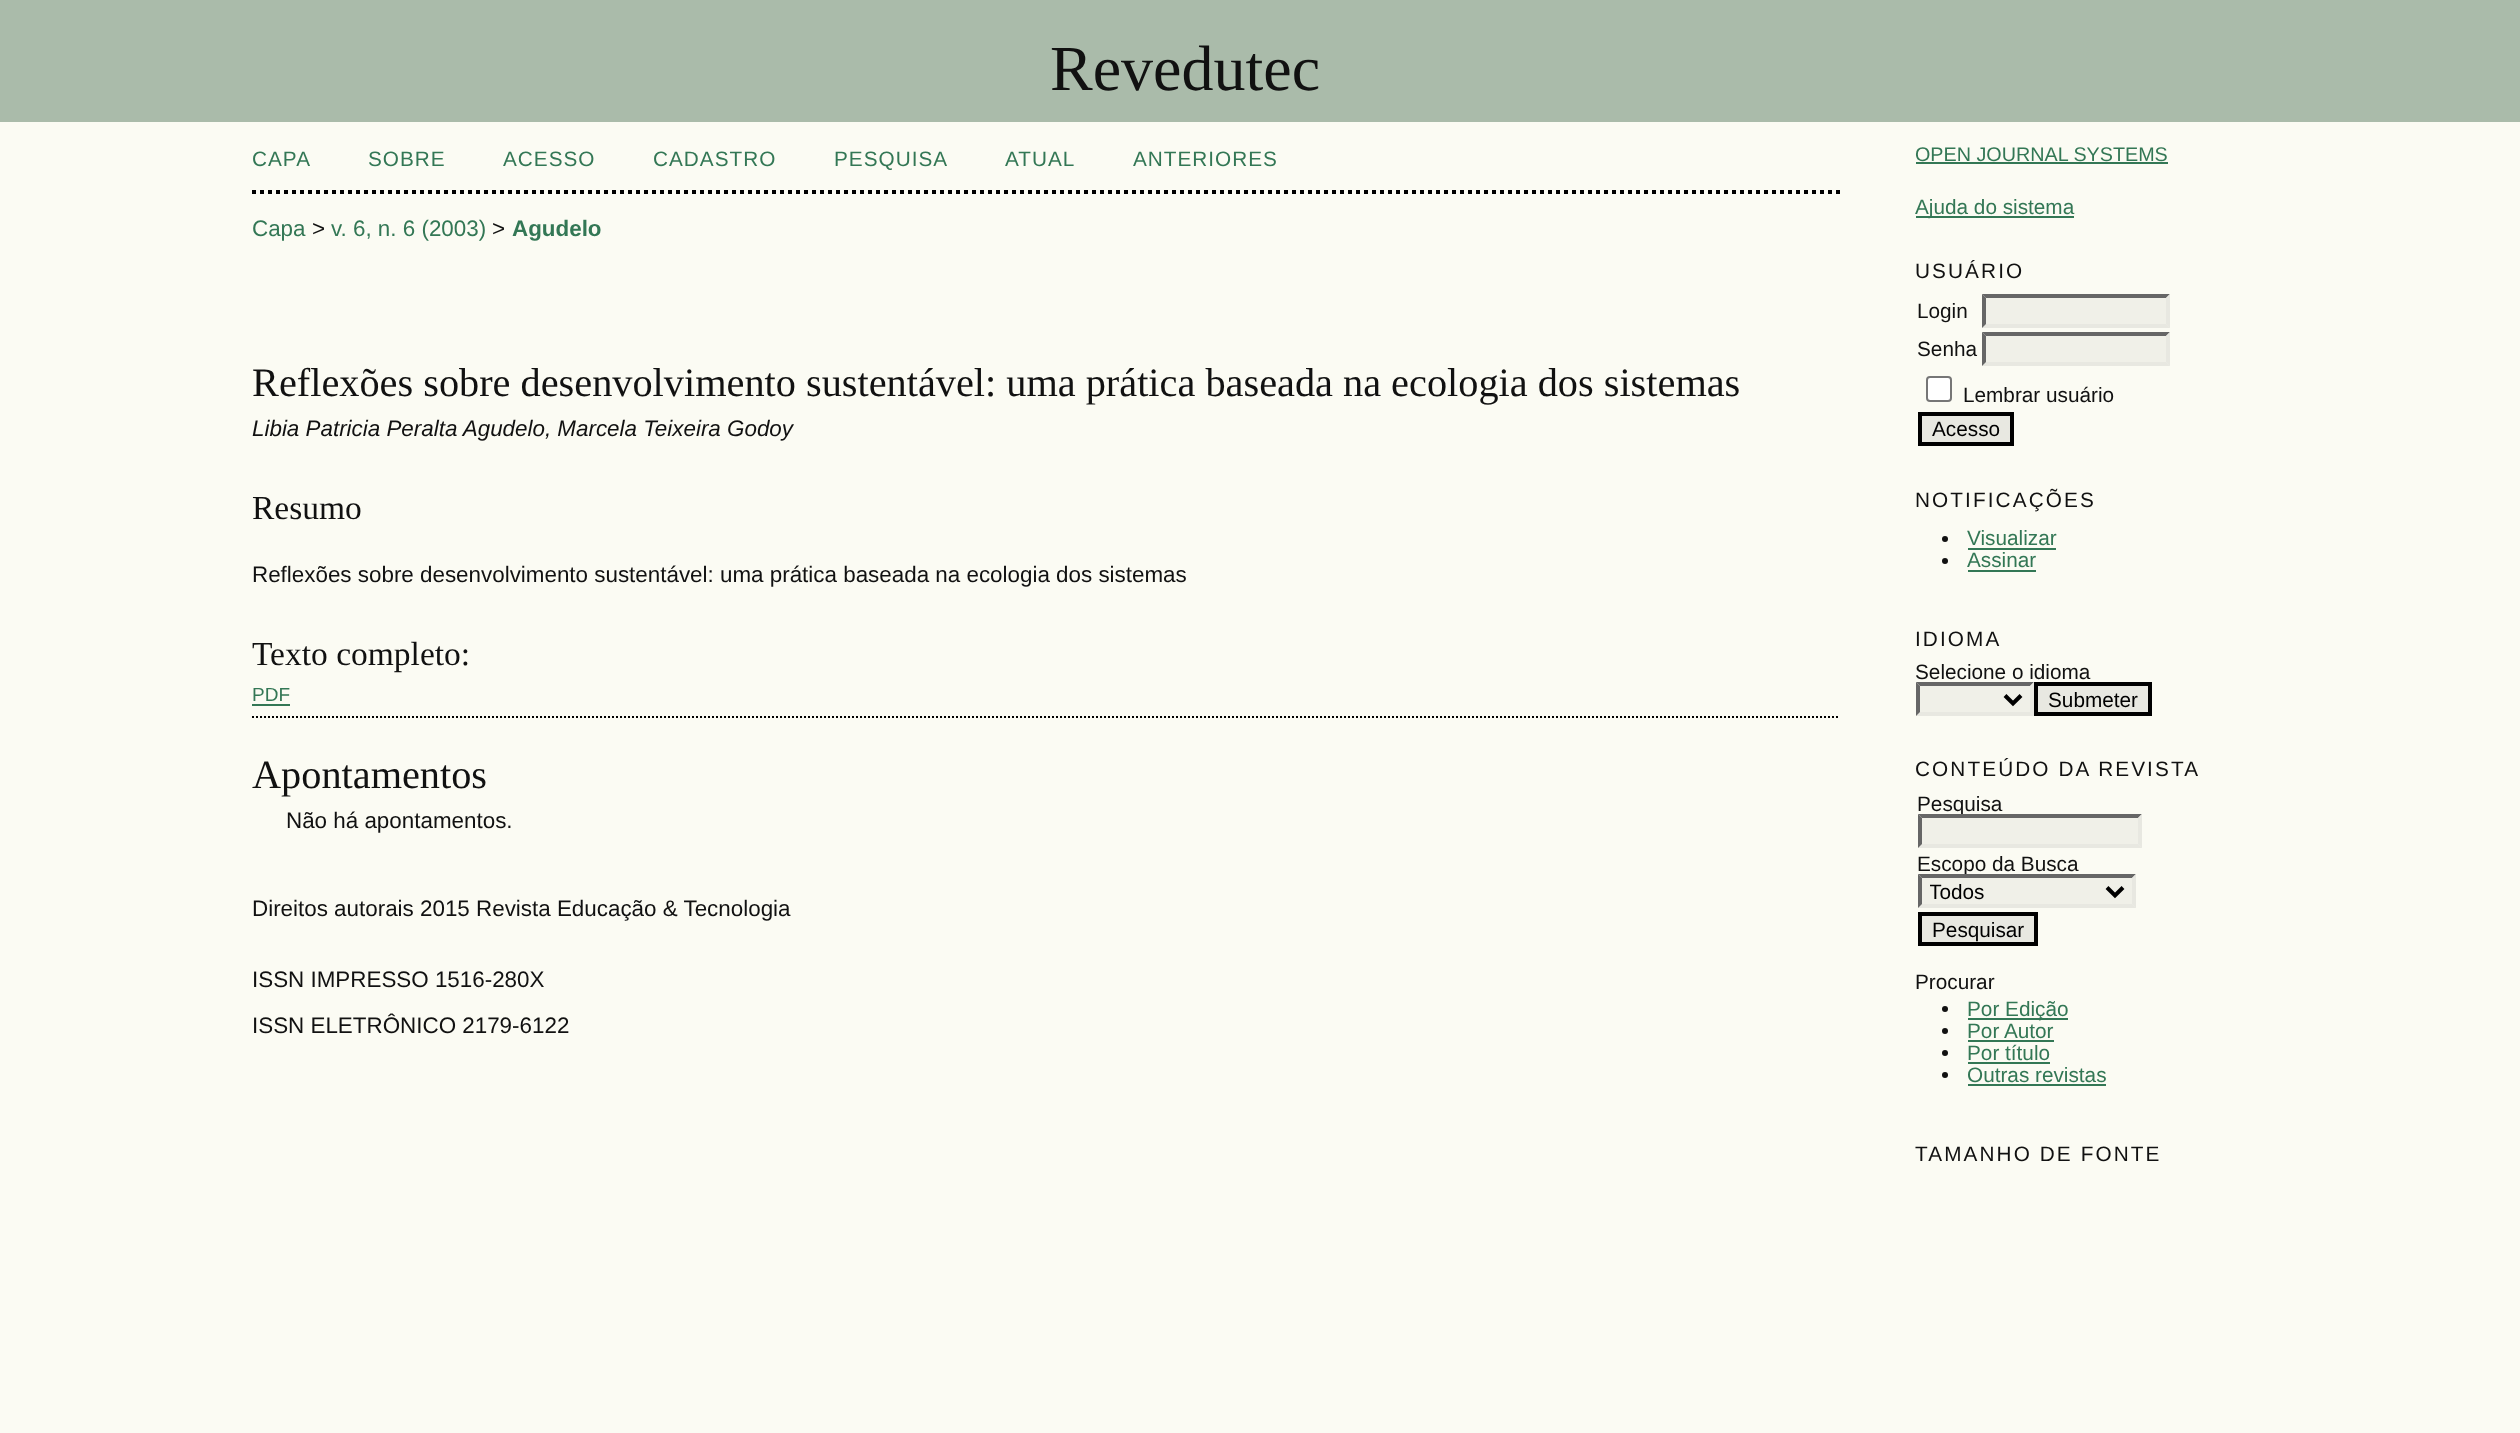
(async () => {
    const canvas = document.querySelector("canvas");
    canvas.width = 2520;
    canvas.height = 1433;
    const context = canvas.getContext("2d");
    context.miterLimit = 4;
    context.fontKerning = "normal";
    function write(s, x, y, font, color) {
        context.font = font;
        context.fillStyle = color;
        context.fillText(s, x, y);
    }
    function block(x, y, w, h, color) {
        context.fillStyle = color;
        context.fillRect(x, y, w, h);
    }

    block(0, 0, 2520, 1433, "rgb(251, 251, 243)");
    block(0, 0, 2520, 122, "rgb(170, 187, 170)");
    write("Revedutec", 1050, 90, "64px Liberation Serif", "rgb(17, 17, 17)");
    context.beginPath();
    context.moveTo(252, 192);
    context.lineTo(1840, 192);
    context.strokeStyle = "rgb(0, 0, 0)";
    context.lineWidth = 4;
    context.setLineDash([4, 4]);
    context.stroke();
    context.letterSpacing = "1px";
    write("CAPA", 252, 166, "20.75px Liberation Sans", "rgb(51, 119, 85)");
    write("SOBRE", 368, 166, "20.75px Liberation Sans", "rgb(51, 119, 85)");
    write("ACESSO", 503, 166, "20.75px Liberation Sans", "rgb(51, 119, 85)");
    write("CADASTRO", 653, 166, "20.75px Liberation Sans", "rgb(51, 119, 85)");
    write("PESQUISA", 834, 166, "20.75px Liberation Sans", "rgb(51, 119, 85)");
    write("ATUAL", 1005, 166, "20.75px Liberation Sans", "rgb(51, 119, 85)");
    write("ANTERIORES", 1133, 166, "20.75px Liberation Sans", "rgb(51, 119, 85)");
    context.letterSpacing = "0px";
    write("Capa", 252, 236, "22.4px Liberation Sans", "rgb(51, 119, 85)");
    write(">", 312, 236, "22.4px Liberation Sans", "rgb(17, 17, 17)");
    write("v. 6, n. 6 (2003)", 331, 236, "22.4px Liberation Sans", "rgb(51, 119, 85)");
    write(">", 492, 236, "22.4px Liberation Sans", "rgb(17, 17, 17)");
    write("Agudelo", 512, 236, "bold 22.4px Liberation Sans", "rgb(51, 119, 85)");
    write("Reflexões sobre desenvolvimento sustentável: uma prática baseada na ecologia dos sistemas", 252, 396, "40.3px Liberation Serif", "rgb(17, 17, 17)");
    write("Libia Patricia Peralta Agudelo, Marcela Teixeira Godoy", 252, 436, "italic 22.4px Liberation Sans", "rgb(17, 17, 17)");
    write("Resumo", 252, 519, "33.5px Liberation Serif", "rgb(17, 17, 17)");
    write("Reflexões sobre desenvolvimento sustentável: uma prática baseada na ecologia dos sistemas", 252, 582, "22.4px Liberation Sans", "rgb(17, 17, 17)");
    write("Texto completo:", 252, 665, "33.5px Liberation Serif", "rgb(17, 17, 17)");
    write("PDF", 252, 701, "19px Liberation Sans", "rgb(51, 119, 85)");
    block(252, 704, 38, 2, "rgb(51, 119, 85)");
    context.beginPath();
    context.moveTo(252, 717);
    context.lineTo(1840, 717);
    context.lineWidth = 2;
    context.setLineDash([2, 2]);
    context.stroke();
    write("Apontamentos", 252, 788, "40.3px Liberation Serif", "rgb(17, 17, 17)");
    write("Não há apontamentos.", 286, 828, "22.4px Liberation Sans", "rgb(17, 17, 17)");
    write("Direitos autorais 2015 Revista Educação & Tecnologia", 252, 916, "22.4px Liberation Sans", "rgb(17, 17, 17)");
    write("ISSN IMPRESSO 1516-280X", 252, 987, "22.4px Liberation Sans", "rgb(17, 17, 17)");
    write("ISSN ELETRÔNICO 2179-6122", 252, 1033, "22.4px Liberation Sans", "rgb(17, 17, 17)");
    write("OPEN JOURNAL SYSTEMS", 1915, 161, "19.75px Liberation Sans", "rgb(51, 119, 85)");
    block(1916, 162, 252, 2, "rgb(51, 119, 85)");
    block(1916, 216, 158, 2, "rgb(51, 119, 85)");
    write("Ajuda do sistema", 1915, 214, "20.75px Liberation Sans", "rgb(51, 119, 85)");
    context.letterSpacing = "2.1px";
    write("USUÁRIO", 1915, 278, "20.75px Liberation Sans", "rgb(17, 17, 17)");
    context.letterSpacing = "0px";
    write("Login", 1917, 318, "20.75px Liberation Sans", "rgb(17, 17, 17)");
    block(1982, 294, 188, 34, "rgb(240, 240, 232)");
    context.fillStyle = "rgb(102, 102, 102)";
    context.beginPath();
    context.moveTo(1982, 294);
    context.lineTo(2170, 294);
    context.lineTo(2166, 298);
    context.lineTo(1986, 298);
    context.closePath();
    context.fill();
    context.fillStyle = "rgb(232, 232, 225)";
    context.beginPath();
    context.moveTo(2170, 294);
    context.lineTo(2170, 328);
    context.lineTo(2166, 324);
    context.lineTo(2166, 298);
    context.closePath();
    context.fill();
    context.beginPath();
    context.moveTo(2170, 328);
    context.lineTo(1982, 328);
    context.lineTo(1986, 324);
    context.lineTo(2166, 324);
    context.closePath();
    context.fill();
    context.fillStyle = "rgb(102, 102, 102)";
    context.beginPath();
    context.moveTo(1982, 328);
    context.lineTo(1982, 294);
    context.lineTo(1986, 298);
    context.lineTo(1986, 324);
    context.closePath();
    context.fill();
    write("Senha", 1917, 356, "20.75px Liberation Sans", "rgb(17, 17, 17)");
    block(1982, 332, 188, 34, "rgb(240, 240, 232)");
    context.fillStyle = "rgb(102, 102, 102)";
    context.beginPath();
    context.moveTo(1982, 332);
    context.lineTo(2170, 332);
    context.lineTo(2166, 336);
    context.lineTo(1986, 336);
    context.closePath();
    context.fill();
    context.fillStyle = "rgb(232, 232, 225)";
    context.beginPath();
    context.moveTo(2170, 332);
    context.lineTo(2170, 366);
    context.lineTo(2166, 362);
    context.lineTo(2166, 336);
    context.closePath();
    context.fill();
    context.beginPath();
    context.moveTo(2170, 366);
    context.lineTo(1982, 366);
    context.lineTo(1986, 362);
    context.lineTo(2166, 362);
    context.closePath();
    context.fill();
    context.fillStyle = "rgb(102, 102, 102)";
    context.beginPath();
    context.moveTo(1982, 366);
    context.lineTo(1982, 332);
    context.lineTo(1986, 336);
    context.lineTo(1986, 362);
    context.closePath();
    context.fill();
    context.fillStyle = "rgb(255, 255, 255)";
    context.beginPath();
    context.roundRect(1927, 377, 24, 24, 3);
    context.fill();
    context.strokeStyle = "rgb(118, 118, 118)";
    context.setLineDash([]);
    context.stroke();
    write("Lembrar usuário", 1963, 402, "20.75px Liberation Sans", "rgb(17, 17, 17)");
    context.fillStyle = "rgb(232, 232, 225)";
    context.beginPath();
    context.rect(1920, 414, 92, 30);
    context.fill();
    context.strokeStyle = "rgb(0, 0, 0)";
    context.lineWidth = 4;
    context.stroke();
    write("Acesso", 1932, 436, "20.75px Liberation Sans", "rgb(0, 0, 0)");
    context.letterSpacing = "2.1px";
    write("NOTIFICAÇÕES", 1915, 507, "20.75px Liberation Sans", "rgb(17, 17, 17)");
    context.beginPath();
    context.arc(1945, 539, 3, 0, Math.PI * 2);
    context.fill();
    context.letterSpacing = "0px";
    write("Visualizar", 1967, 545, "20.75px Liberation Sans", "rgb(51, 119, 85)");
    block(1968, 548, 88, 2, "rgb(51, 119, 85)");
    context.fillStyle = "rgb(17, 17, 17)";
    context.beginPath();
    context.arc(1945, 561, 3, 0, Math.PI * 2);
    context.fill();
    write("Assinar", 1967, 567, "20.75px Liberation Sans", "rgb(51, 119, 85)");
    block(1968, 570, 68, 2, "rgb(51, 119, 85)");
    context.letterSpacing = "2.1px";
    write("IDIOMA", 1915, 646, "20.75px Liberation Sans", "rgb(17, 17, 17)");
    context.letterSpacing = "0px";
    write("Selecione o idioma", 1915, 679, "20.75px Liberation Sans", "rgb(17, 17, 17)");
    block(1916, 682, 118, 34, "rgb(240, 240, 232)");
    context.fillStyle = "rgb(102, 102, 102)";
    context.beginPath();
    context.moveTo(1916, 682);
    context.lineTo(2034, 682);
    context.lineTo(2030, 686);
    context.lineTo(1920, 686);
    context.closePath();
    context.fill();
    context.fillStyle = "rgb(232, 232, 225)";
    context.beginPath();
    context.moveTo(2034, 682);
    context.lineTo(2034, 716);
    context.lineTo(2030, 712);
    context.lineTo(2030, 686);
    context.closePath();
    context.fill();
    context.beginPath();
    context.moveTo(2034, 716);
    context.lineTo(1916, 716);
    context.lineTo(1920, 712);
    context.lineTo(2030, 712);
    context.closePath();
    context.fill();
    context.fillStyle = "rgb(102, 102, 102)";
    context.beginPath();
    context.moveTo(1916, 716);
    context.lineTo(1916, 682);
    context.lineTo(1920, 686);
    context.lineTo(1920, 712);
    context.closePath();
    context.fill();
    context.beginPath();
    context.moveTo(2005, 695.5);
    context.lineTo(2013, 703.5);
    context.lineTo(2021, 695.5);
    context.stroke();
    context.fillStyle = "rgb(232, 232, 225)";
    context.beginPath();
    context.rect(2036, 684, 114, 30);
    context.fill();
    context.stroke();
    write("Submeter", 2048, 707, "20.75px Liberation Sans", "rgb(0, 0, 0)");
    context.letterSpacing = "2.1px";
    write("CONTEÚDO DA REVISTA", 1915, 776, "20.75px Liberation Sans", "rgb(17, 17, 17)");
    context.letterSpacing = "0px";
    write("Pesquisa", 1917, 811, "20.75px Liberation Sans", "rgb(17, 17, 17)");
    block(1918, 814, 224, 34, "rgb(240, 240, 232)");
    context.fillStyle = "rgb(102, 102, 102)";
    context.beginPath();
    context.moveTo(1918, 814);
    context.lineTo(2142, 814);
    context.lineTo(2138, 818);
    context.lineTo(1922, 818);
    context.closePath();
    context.fill();
    context.fillStyle = "rgb(232, 232, 225)";
    context.beginPath();
    context.moveTo(2142, 814);
    context.lineTo(2142, 848);
    context.lineTo(2138, 844);
    context.lineTo(2138, 818);
    context.closePath();
    context.fill();
    context.beginPath();
    context.moveTo(2142, 848);
    context.lineTo(1918, 848);
    context.lineTo(1922, 844);
    context.lineTo(2138, 844);
    context.closePath();
    context.fill();
    context.fillStyle = "rgb(102, 102, 102)";
    context.beginPath();
    context.moveTo(1918, 848);
    context.lineTo(1918, 814);
    context.lineTo(1922, 818);
    context.lineTo(1922, 844);
    context.closePath();
    context.fill();
    write("Escopo da Busca", 1917, 871, "20.75px Liberation Sans", "rgb(17, 17, 17)");
    block(1918, 874, 218, 34, "rgb(240, 240, 232)");
    context.fillStyle = "rgb(102, 102, 102)";
    context.beginPath();
    context.moveTo(1918, 874);
    context.lineTo(2136, 874);
    context.lineTo(2132, 878);
    context.lineTo(1922, 878);
    context.closePath();
    context.fill();
    context.fillStyle = "rgb(232, 232, 225)";
    context.beginPath();
    context.moveTo(2136, 874);
    context.lineTo(2136, 908);
    context.lineTo(2132, 904);
    context.lineTo(2132, 878);
    context.closePath();
    context.fill();
    context.beginPath();
    context.moveTo(2136, 908);
    context.lineTo(1918, 908);
    context.lineTo(1922, 904);
    context.lineTo(2132, 904);
    context.closePath();
    context.fill();
    context.fillStyle = "rgb(102, 102, 102)";
    context.beginPath();
    context.moveTo(1918, 908);
    context.lineTo(1918, 874);
    context.lineTo(1922, 878);
    context.lineTo(1922, 904);
    context.closePath();
    context.fill();
    context.beginPath();
    context.moveTo(2107, 887.5);
    context.lineTo(2115, 895.5);
    context.lineTo(2123, 887.5);
    context.stroke();
    context.save();
    context.beginPath();
    context.rect(1930, 878, 170, 26);
    context.clip();
    write("Todos", 1929, 899, "20.75px Liberation Sans", "rgb(0, 0, 0)");
    context.restore();
    context.fillStyle = "rgb(232, 232, 225)";
    context.beginPath();
    context.rect(1920, 914, 116, 30);
    context.fill();
    context.stroke();
    write("Pesquisar", 1932, 937, "20.75px Liberation Sans", "rgb(0, 0, 0)");
    write("Procurar", 1915, 989, "20.75px Liberation Sans", "rgb(17, 17, 17)");
    context.beginPath();
    context.arc(1945, 1009, 3, 0, Math.PI * 2);
    context.fill();
    block(1968, 1018, 100, 2, "rgb(51, 119, 85)");
    write("Por Edição", 1967, 1016, "20.75px Liberation Sans", "rgb(51, 119, 85)");
    context.fillStyle = "rgb(17, 17, 17)";
    context.beginPath();
    context.arc(1945, 1031, 3, 0, Math.PI * 2);
    context.fill();
    write("Por Autor", 1967, 1038, "20.75px Liberation Sans", "rgb(51, 119, 85)");
    block(1968, 1040, 86, 2, "rgb(51, 119, 85)");
    context.fillStyle = "rgb(17, 17, 17)";
    context.beginPath();
    context.arc(1945, 1053, 3, 0, Math.PI * 2);
    context.fill();
    write("Por título", 1967, 1060, "20.75px Liberation Sans", "rgb(51, 119, 85)");
    block(1968, 1062, 82, 2, "rgb(51, 119, 85)");
    context.fillStyle = "rgb(17, 17, 17)";
    context.beginPath();
    context.arc(1945, 1075, 3, 0, Math.PI * 2);
    context.fill();
    write("Outras revistas", 1967, 1082, "20.75px Liberation Sans", "rgb(51, 119, 85)");
    block(1968, 1084, 138, 2, "rgb(51, 119, 85)");
    context.letterSpacing = "2.1px";
    write("TAMANHO DE FONTE", 1915, 1161, "20.75px Liberation Sans", "rgb(17, 17, 17)");
})();
